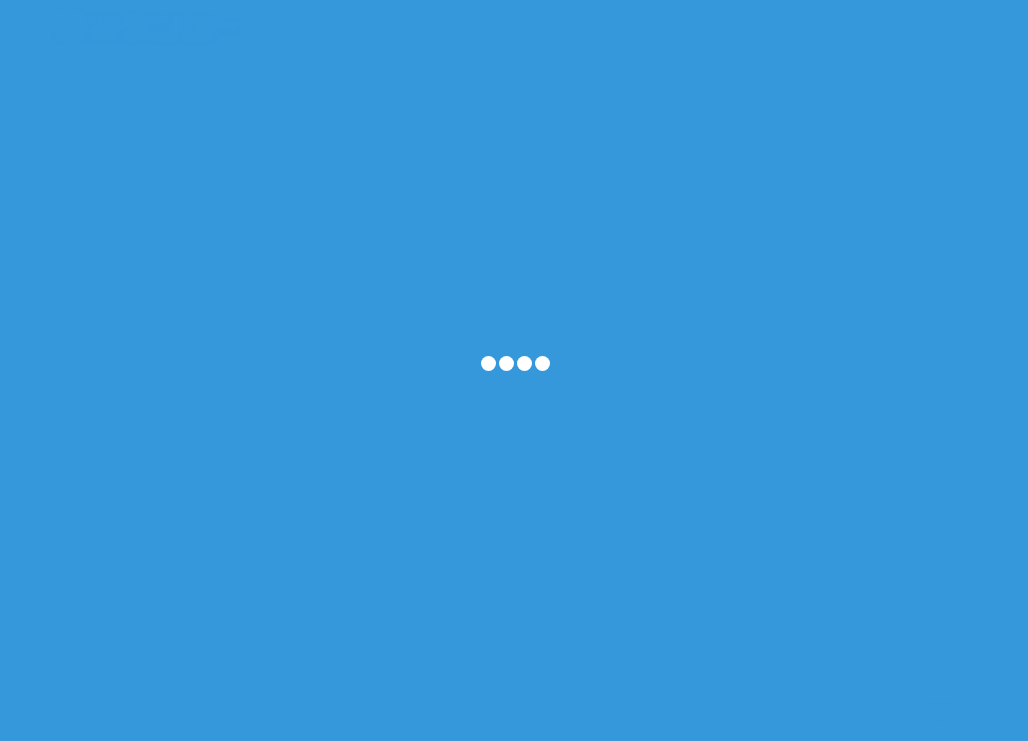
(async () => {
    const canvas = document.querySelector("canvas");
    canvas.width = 1028;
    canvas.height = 741;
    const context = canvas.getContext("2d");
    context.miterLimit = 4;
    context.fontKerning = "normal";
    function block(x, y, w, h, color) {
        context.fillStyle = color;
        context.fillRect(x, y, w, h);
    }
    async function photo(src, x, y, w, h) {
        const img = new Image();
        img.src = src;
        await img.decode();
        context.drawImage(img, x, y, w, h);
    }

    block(0, 0, 1028, 741, "rgb(52, 152, 219)");
    await photo("media/1.png", 51, 7, 189, 38);
    await photo("media/2.png", 897, 23, 6, 9);
    await photo("media/3.png", 0, 78, 1028, 165);
    await photo("media/4.png", 138, 526, 273, 208);
    context.fillStyle = "rgb(255, 255, 255)";
    context.beginPath();
    context.arc(488.5, 363.5, 7.5, 0, Math.PI * 2);
    context.fill();
    context.beginPath();
    context.arc(506.5, 363.5, 7.5, 0, Math.PI * 2);
    context.fill();
    context.beginPath();
    context.arc(524.5, 363.5, 7.5, 0, Math.PI * 2);
    context.fill();
    context.beginPath();
    context.arc(542.5, 363.5, 7.5, 0, Math.PI * 2);
    context.fill();
    await photo("media/5.png", 918, 608, 100, 118);
})();
